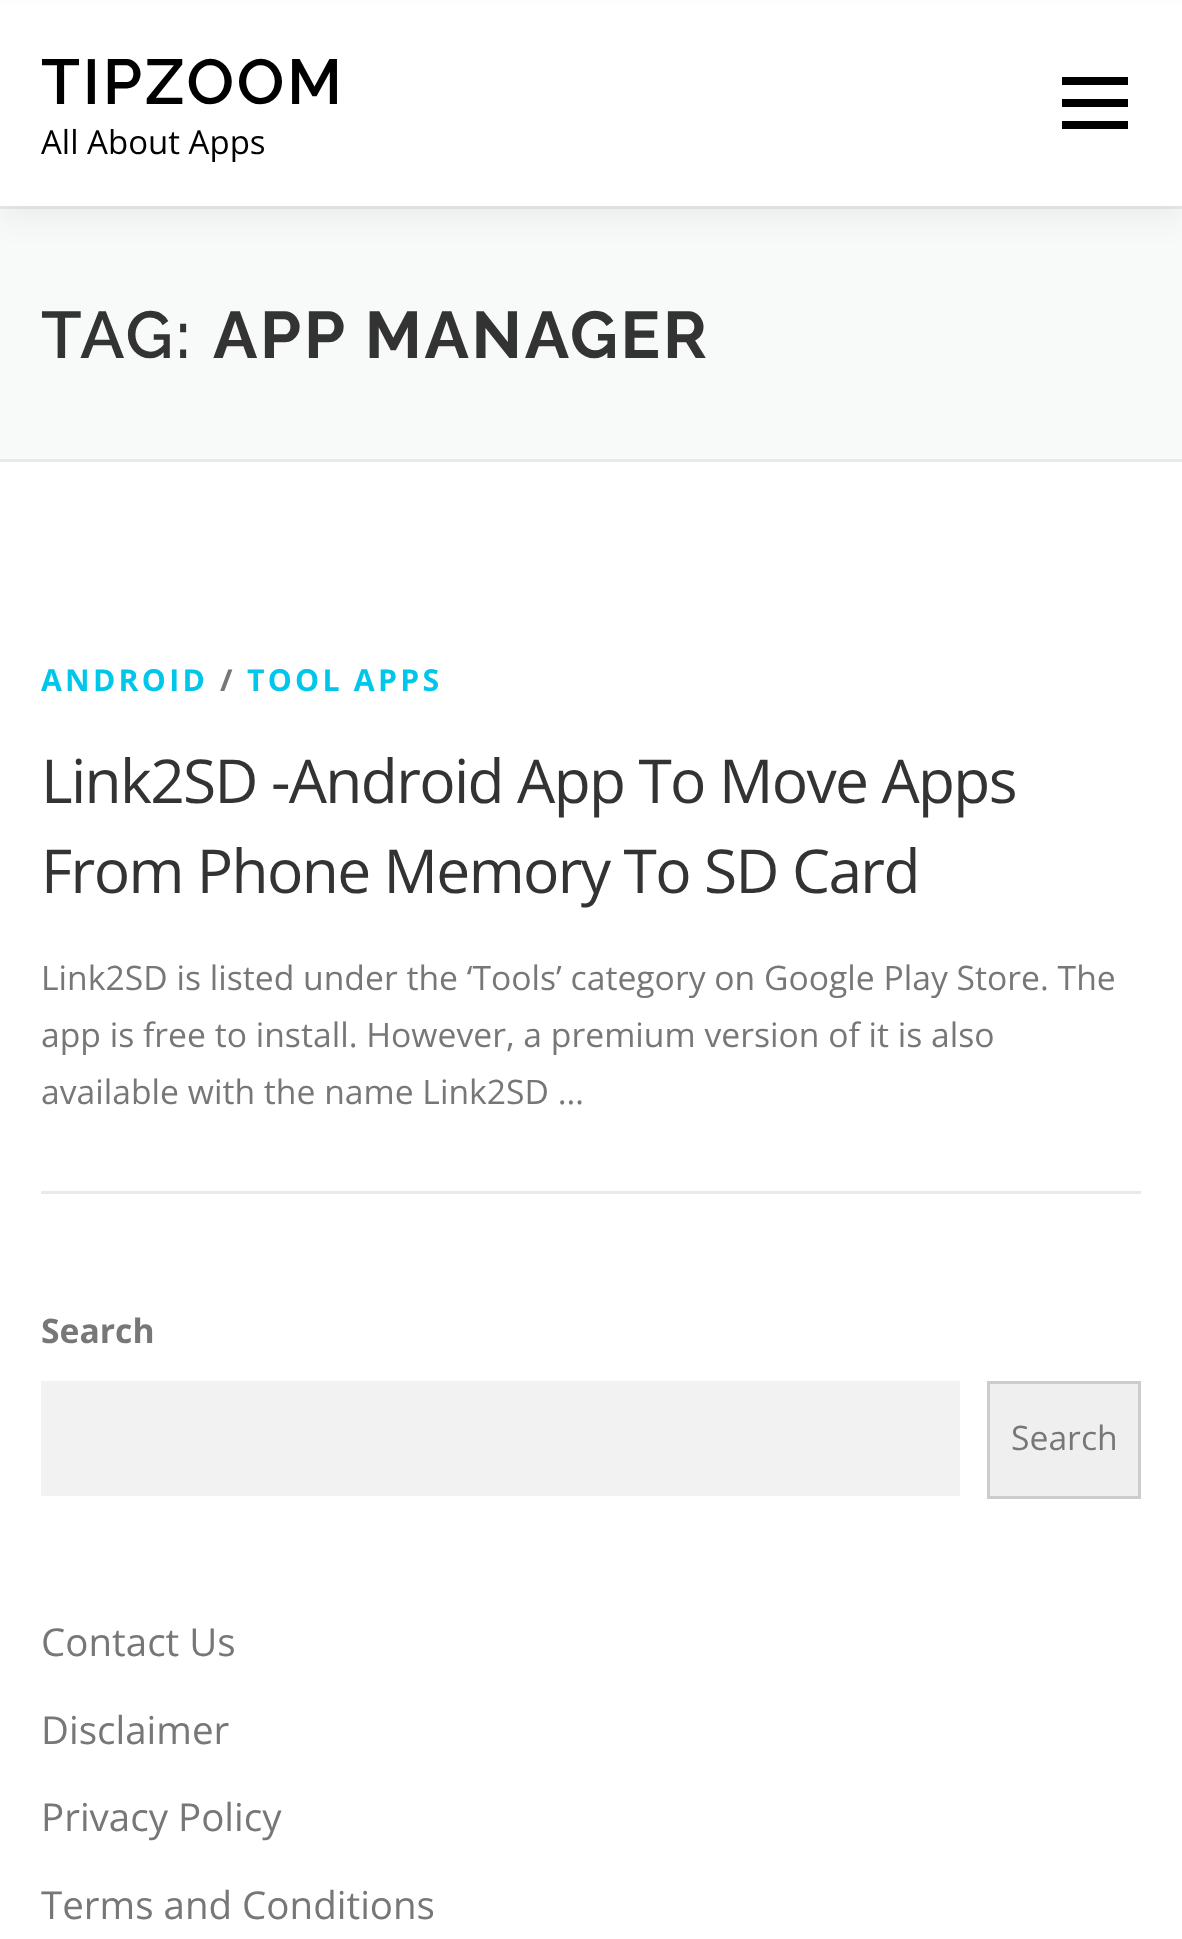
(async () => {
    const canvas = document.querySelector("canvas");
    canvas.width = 1182;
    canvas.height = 1939;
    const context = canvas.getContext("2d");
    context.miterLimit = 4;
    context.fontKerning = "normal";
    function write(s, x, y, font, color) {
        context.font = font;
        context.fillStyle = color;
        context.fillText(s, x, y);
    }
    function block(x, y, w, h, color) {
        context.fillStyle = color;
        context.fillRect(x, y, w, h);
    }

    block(0, 0, 1182, 1939, "rgb(255, 255, 255)");
    block(0, 209, 1182, 250, "rgb(248, 249, 249)");
    block(0, 206, 1182, 3, "rgb(233, 233, 233)");
    context.fillStyle = "rgba(50, 50, 50, 0.06)";
    context.filter = "blur(14px)";
    context.beginPath();
    context.rect(0, 14, 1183, 206);
    context.fill();
    context.filter = "none";
    block(0, 3, 1182, 203, "rgb(255, 255, 255)");
    context.letterSpacing = "2.75px";
    write("TIPZOOM", 41, 104, "600 63.25px Raleway", "rgb(0, 0, 0)");
    context.letterSpacing = "0px";
    write("All About Apps", 41, 154, "33px Open Sans", "rgb(0, 0, 0)");
    block(1062, 99, 66, 8, "rgb(0, 0, 0)");
    block(1062, 77, 66, 8, "rgb(0, 0, 0)");
    block(1062, 121, 66, 8, "rgb(0, 0, 0)");
    block(0, 459, 1182, 3, "rgb(233, 233, 233)");
    context.letterSpacing = "2.75px";
    write("TAG:", 41, 358, "600 66px Raleway", "rgb(51, 51, 51)");
    write("APP MANAGER", 213, 358, "bold 66px Raleway", "rgb(51, 51, 51)");
    block(41, 1191, 1100, 3, "rgb(233, 233, 233)");
    context.letterSpacing = "3.25px";
    write("ANDROID", 41, 691, "bold 30.25px Open Sans", "rgb(0, 199, 234)");
    write("/", 220, 691, "bold 30.25px Open Sans", "rgb(119, 119, 119)");
    write("TOOL APPS", 247, 691, "bold 30.25px Open Sans", "rgb(0, 199, 234)");
    context.letterSpacing = "-1.65px";
    write("Link2SD -Android App To Move Apps", 41, 803, "60.5px Open Sans", "rgb(51, 51, 51)");
    write("From Phone Memory To SD Card", 41, 893, "60.5px Open Sans", "rgb(51, 51, 51)");
    context.letterSpacing = "0px";
    write("Link2SD is listed under the ‘Tools’ category on Google Play Store. The", 41, 990, "33.7px Open Sans", "rgb(119, 119, 119)");
    write("app is free to install. However, a premium version of it is also", 41, 1047, "33.7px Open Sans", "rgb(119, 119, 119)");
    write("available with the name Link2SD …", 41, 1104, "33.7px Open Sans", "rgb(119, 119, 119)");
    write("Search", 41, 1343, "bold 33.7px Open Sans", "rgb(119, 119, 119)");
    block(41, 1381, 919, 115, "rgb(242, 242, 242)");
    context.fillStyle = "rgb(239, 239, 239)";
    context.beginPath();
    context.rect(988.5, 1382.5, 151, 115);
    context.fill();
    context.strokeStyle = "rgb(204, 204, 204)";
    context.lineWidth = 3;
    context.stroke();
    write("Search", 1011, 1450, "33.7px Open Sans", "rgb(119, 119, 119)");
    write("Contact Us", 41, 1656, "38.5px Open Sans", "rgb(119, 119, 119)");
    write("Disclaimer", 41, 1744, "38.5px Open Sans", "rgb(119, 119, 119)");
    write("Privacy Policy", 41, 1831, "38.5px Open Sans", "rgb(119, 119, 119)");
    write("Terms and Conditions", 41, 1919, "38.5px Open Sans", "rgb(119, 119, 119)");
})();
